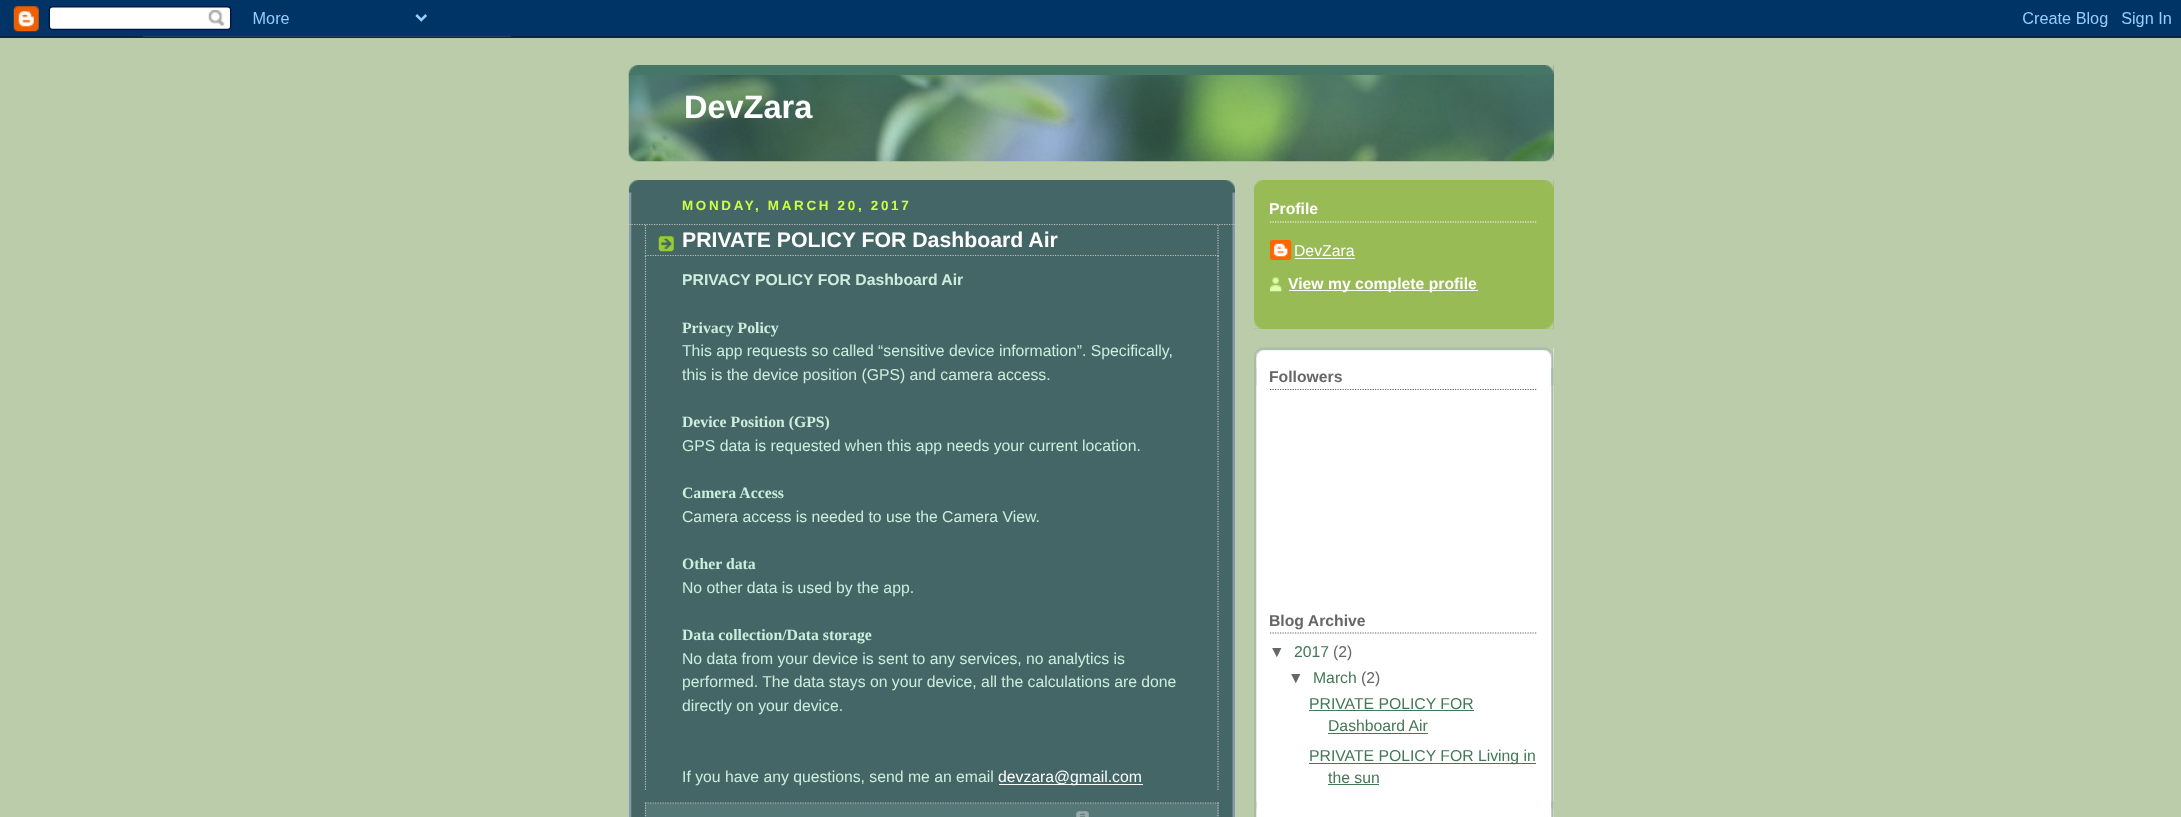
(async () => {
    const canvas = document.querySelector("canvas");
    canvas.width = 2181;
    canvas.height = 817;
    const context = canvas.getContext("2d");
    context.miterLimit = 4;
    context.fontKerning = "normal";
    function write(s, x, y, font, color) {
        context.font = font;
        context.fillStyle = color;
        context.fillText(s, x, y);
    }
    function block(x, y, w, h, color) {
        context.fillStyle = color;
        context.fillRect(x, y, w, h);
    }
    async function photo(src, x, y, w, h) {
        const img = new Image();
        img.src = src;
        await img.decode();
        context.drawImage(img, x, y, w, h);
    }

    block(0, 0, 2181, 817, "rgb(187, 204, 170)");
    await photo("media/1.png", 0, 0, 2181, 38);
    block(629, 65, 925, 96, "rgb(68, 119, 102)");
    await photo("media/2.png", 628, 65, 926, 10);
    await photo("media/3.png", 628, 75, 926, 87);
    write("DevZara", 684, 118, "bold 32.5px Liberation Sans", "rgb(255, 255, 255)");
    block(629, 180, 606, 637, "rgb(68, 102, 102)");
    await photo("media/4.png", 628, 180, 607, 10);
    await photo("media/5.png", 629, 192, 606, 625);
    context.letterSpacing = "2.7px";
    write("MONDAY, MARCH 20, 2017", 682, 210, "bold 13.4px Liberation Sans", "rgb(204, 255, 68)");
    context.beginPath();
    context.moveTo(629, 224.5);
    context.lineTo(1235, 224.5);
    context.strokeStyle = "rgb(187, 187, 187)";
    context.lineWidth = 1.2;
    context.setLineDash([1.25, 1.25]);
    context.stroke();
    await photo("media/6.png", 658, 236, 16, 16);
    context.beginPath();
    context.moveTo(1218, 225);
    context.lineTo(1218, 256);
    context.stroke();
    context.beginPath();
    context.moveTo(645, 255.5);
    context.lineTo(1219, 255.5);
    context.stroke();
    context.beginPath();
    context.moveTo(645.5, 225);
    context.lineTo(645.5, 256);
    context.stroke();
    context.letterSpacing = "0px";
    write("PRIVATE POLICY FOR Dashboard Air", 682, 247, "bold 21.25px Liberation Sans", "rgb(255, 255, 255)");
    context.beginPath();
    context.moveTo(1218, 256);
    context.lineTo(1218, 791);
    context.stroke();
    context.beginPath();
    context.moveTo(645.5, 256);
    context.lineTo(645.5, 791);
    context.stroke();
    write("PRIVACY POLICY FOR Dashboard Air", 682, 285, "bold 15.75px Liberation Sans", "rgb(204, 238, 221)");
    write("Privacy Policy", 682, 333, "bold 15.75px Liberation Serif", "rgb(204, 238, 221)");
    write("This app requests so called “sensitive device information”. Specifically,", 682, 356, "15.75px Liberation Sans", "rgb(204, 238, 221)");
    write("this is the device position (GPS) and camera access.", 682, 380, "15.75px Liberation Sans", "rgb(204, 238, 221)");
    write("Device Position (GPS)", 682, 427, "bold 15.75px Liberation Serif", "rgb(204, 238, 221)");
    write("GPS data is requested when this app needs your current location.", 682, 451, "15.75px Liberation Sans", "rgb(204, 238, 221)");
    write("Camera Access", 682, 498, "bold 15.75px Liberation Serif", "rgb(204, 238, 221)");
    write("Camera access is needed to use the Camera View.", 682, 522, "15.75px Liberation Sans", "rgb(204, 238, 221)");
    write("Other data", 682, 569, "bold 15.75px Liberation Serif", "rgb(204, 238, 221)");
    write("No other data is used by the app.", 682, 593, "15.75px Liberation Sans", "rgb(204, 238, 221)");
    write("Data collection/Data storage", 682, 640, "bold 15.75px Liberation Serif", "rgb(204, 238, 221)");
    write("No data from your device is sent to any services, no analytics is", 682, 664, "15.75px Liberation Sans", "rgb(204, 238, 221)");
    write("performed. The data stays on your device, all the calculations are done", 682, 687, "15.75px Liberation Sans", "rgb(204, 238, 221)");
    write("directly on your device.", 682, 711, "15.75px Liberation Sans", "rgb(204, 238, 221)");
    write("If you have any questions, send me an email", 682, 782, "15.75px Liberation Sans", "rgb(204, 238, 221)");
    block(999, 784, 144, 1, "rgb(255, 255, 255)");
    write("devzara@gmail.com", 998, 782, "15.75px Liberation Sans", "rgb(255, 255, 255)");
    block(645, 803, 574, 14, "rgb(85, 119, 119)");
    context.beginPath();
    context.moveTo(645, 803);
    context.lineTo(1219, 803);
    context.stroke();
    context.beginPath();
    context.moveTo(1218, 802.5);
    context.lineTo(1218, 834);
    context.stroke();
    context.beginPath();
    context.moveTo(645.5, 802.5);
    context.lineTo(645.5, 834);
    context.stroke();
    await photo("media/7.png", 1076, 811, 13, 6);
    block(1254, 180, 300, 149, "rgb(153, 187, 85)");
    await photo("media/8.png", 1253, 319, 301, 10);
    await photo("media/9.png", 1253, 180, 301, 10);
    context.beginPath();
    context.moveTo(1270, 222);
    context.lineTo(1537.5, 222);
    context.strokeStyle = "rgb(255, 255, 255)";
    context.stroke();
    write("Profile", 1269, 214, "bold 15.75px Liberation Sans", "rgb(255, 255, 255)");
    await photo("media/10.png", 1270, 240, 22, 20);
    write("DevZara", 1294, 256, "15.75px Liberation Sans", "rgb(255, 255, 255)");
    block(1295, 258, 60, 1, "rgb(255, 255, 255)");
    await photo("media/11.png", 1270, 277, 12, 15);
    block(1289, 290, 189, 1, "rgb(255, 255, 255)");
    write("View my complete profile", 1288, 289, "bold 15.75px Liberation Sans", "rgb(255, 255, 255)");
    block(1256, 348, 298, 469, "rgb(255, 255, 255)");
    await photo("media/12.png", 1254, 347, 300, 38);
    await photo("media/13.png", 1254, 801, 300, 16);
    await photo("media/14.png", 1254, 367, 300, 442);
    context.beginPath();
    context.moveTo(1270, 389.5);
    context.lineTo(1537.5, 389.5);
    context.strokeStyle = "rgb(102, 102, 102)";
    context.stroke();
    write("Followers", 1269, 382, "bold 15.75px Liberation Sans", "rgb(102, 102, 102)");
    context.beginPath();
    context.moveTo(1270, 633);
    context.lineTo(1537.5, 633);
    context.stroke();
    write("Blog Archive", 1269, 626, "bold 15.75px Liberation Sans", "rgb(102, 102, 102)");
    write("▼", 1269, 657, "15.75px Liberation Sans", "rgb(102, 102, 102)");
    write("2017", 1294, 657, "15.75px Liberation Sans", "rgb(68, 119, 85)");
    write("(2)", 1333, 657, "15.75px Liberation Sans", "rgb(102, 102, 102)");
    write("▼", 1288, 683, "15.75px Liberation Sans", "rgb(102, 102, 102)");
    write("March", 1313, 683, "15.75px Liberation Sans", "rgb(68, 119, 85)");
    write("(2)", 1361, 683, "15.75px Liberation Sans", "rgb(102, 102, 102)");
    write("PRIVATE POLICY FOR", 1309, 709, "15.75px Liberation Sans", "rgb(68, 119, 85)");
    block(1309, 710, 165, 1, "rgb(68, 119, 85)");
    write("Dashboard Air", 1328, 731, "15.75px Liberation Sans", "rgb(68, 119, 85)");
    block(1328, 733, 100, 1, "rgb(68, 119, 85)");
    block(1309, 763, 227, 1, "rgb(68, 119, 85)");
    write("PRIVATE POLICY FOR Living in", 1309, 761, "15.75px Liberation Sans", "rgb(68, 119, 85)");
    write("the sun", 1328, 783, "15.75px Liberation Sans", "rgb(68, 119, 85)");
    block(1328, 784, 51, 1, "rgb(68, 119, 85)");
})();
